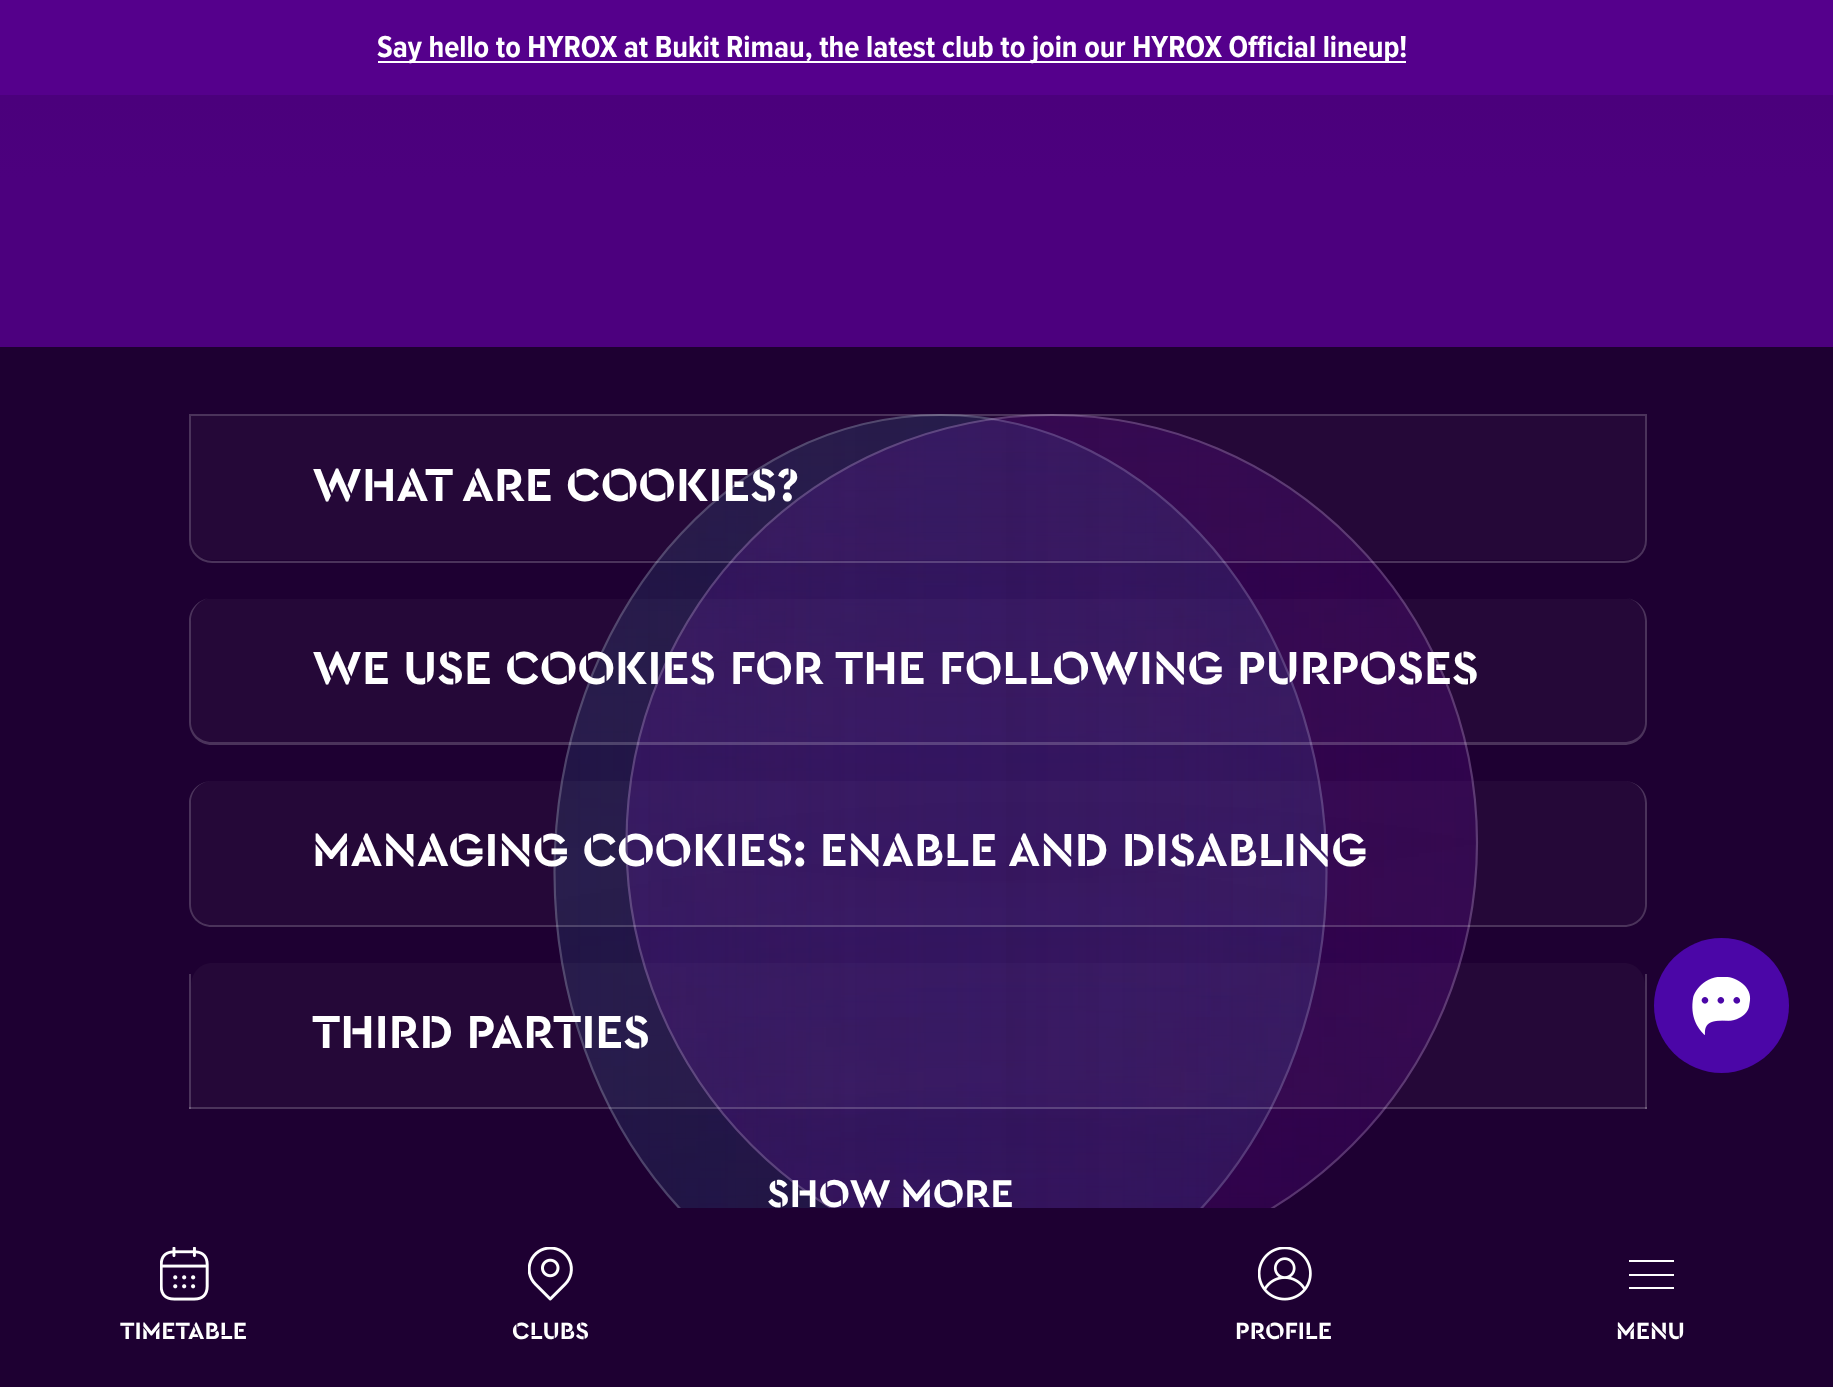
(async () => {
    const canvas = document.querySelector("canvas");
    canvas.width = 1833;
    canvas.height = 1387;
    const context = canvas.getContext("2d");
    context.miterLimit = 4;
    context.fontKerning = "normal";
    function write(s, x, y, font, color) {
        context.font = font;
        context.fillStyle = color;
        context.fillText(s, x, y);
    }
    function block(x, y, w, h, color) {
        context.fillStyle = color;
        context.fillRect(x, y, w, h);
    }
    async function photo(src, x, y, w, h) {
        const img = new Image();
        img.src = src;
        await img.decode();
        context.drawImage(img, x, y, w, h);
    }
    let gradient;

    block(0, 0, 1833, 1387, "rgb(30, 0, 50)");
    gradient = context.createLinearGradient(917, 347, 917, -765);
    gradient.addColorStop(0.15, "rgb(76, 0, 126)");
    gradient.addColorStop(1, "rgb(64, 0, 104)");
    context.fillStyle = gradient;
    context.fillRect(0, 95, 1833, 252);
    context.fillStyle = "rgb(37, 8, 56)";
    context.beginPath();
    context.roundRect(191, 416, 1454, 144, [0, 0, 20, 20]);
    context.fill();
    context.beginPath();
    context.moveTo(1629, 599);
    context.bezierCurveTo(1638, 601, 1645, 610, 1645, 621);
    context.lineTo(1645, 722);
    context.bezierCurveTo(1645, 733, 1636, 742, 1624, 742);
    context.lineTo(212, 742);
    context.bezierCurveTo(200, 742, 191, 733, 191, 722);
    context.lineTo(191, 621);
    context.bezierCurveTo(191, 610, 198, 601, 207, 599);
    context.closePath();
    context.fill();
    context.beginPath();
    context.moveTo(1628, 781);
    context.bezierCurveTo(1637, 783, 1645, 792, 1645, 803);
    context.lineTo(1645, 904);
    context.bezierCurveTo(1645, 916, 1636, 925, 1624, 925);
    context.lineTo(212, 925);
    context.bezierCurveTo(200, 925, 191, 916, 191, 904);
    context.lineTo(191, 803);
    context.bezierCurveTo(191, 792, 199, 783, 208, 781);
    context.closePath();
    context.fill();
    context.beginPath();
    context.moveTo(212, 963);
    context.bezierCurveTo(200, 963, 191, 973, 191, 986);
    context.lineTo(191, 1107);
    context.lineTo(1645, 1107);
    context.lineTo(1645, 986);
    context.bezierCurveTo(1645, 973, 1636, 963, 1624, 963);
    context.closePath();
    context.fill();
    context.save();
    context.beginPath();
    context.moveTo(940.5, 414);
    context.bezierCurveTo(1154, 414, 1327.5, 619, 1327.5, 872);
    context.bezierCurveTo(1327.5, 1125, 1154, 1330, 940.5, 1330);
    context.bezierCurveTo(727, 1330, 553.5, 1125, 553.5, 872);
    context.bezierCurveTo(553.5, 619, 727, 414, 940.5, 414);
    context.closePath();
    context.clip();
    context.fillStyle = "rgba(62, 127, 172, 0.2)";
    context.filter = "blur(225px)";
    context.beginPath();
    context.rect(556, -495, 769, 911);
    context.fill();
    context.filter = "none";
    context.filter = "blur(225px)";
    context.beginPath();
    context.rect(-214, 416, 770, 912);
    context.fill();
    context.filter = "none";
    context.filter = "blur(225px)";
    context.beginPath();
    context.rect(556, 416, 769, 912);
    context.fill();
    context.filter = "none";
    context.filter = "blur(225px)";
    context.beginPath();
    context.rect(1325, 416, 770, 912);
    context.fill();
    context.filter = "none";
    context.filter = "blur(225px)";
    context.beginPath();
    context.rect(556, 1328, 769, 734);
    context.fill();
    context.filter = "none";
    context.restore();
    context.beginPath();
    context.moveTo(940.5, 415);
    context.bezierCurveTo(1153.5, 415, 1326.5, 619.5, 1326.5, 872);
    context.bezierCurveTo(1326.5, 1124, 1153.5, 1328.5, 940.5, 1328.5);
    context.bezierCurveTo(727.5, 1328.5, 554.5, 1124, 554.5, 872);
    context.bezierCurveTo(554.5, 619.5, 727.5, 415, 940.5, 415);
    context.closePath();
    context.strokeStyle = "rgba(255, 255, 255, 0.2)";
    context.lineWidth = 2.2;
    context.stroke();
    context.save();
    context.beginPath();
    context.moveTo(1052, 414);
    context.bezierCurveTo(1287.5, 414, 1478, 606, 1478, 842.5);
    context.bezierCurveTo(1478, 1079.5, 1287.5, 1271, 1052, 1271);
    context.bezierCurveTo(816.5, 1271, 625.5, 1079.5, 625.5, 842.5);
    context.bezierCurveTo(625.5, 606, 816.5, 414, 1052, 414);
    context.closePath();
    context.clip();
    context.fillStyle = "rgba(134, 26, 198, 0.2)";
    context.filter = "blur(225px)";
    context.beginPath();
    context.rect(628, -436, 848, 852);
    context.fill();
    context.filter = "none";
    context.filter = "blur(225px)";
    context.beginPath();
    context.rect(-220, 416, 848, 853);
    context.fill();
    context.filter = "none";
    context.filter = "blur(225px)";
    context.beginPath();
    context.rect(628, 416, 848, 853);
    context.fill();
    context.filter = "none";
    context.filter = "blur(225px)";
    context.beginPath();
    context.rect(1476, 416, 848, 853);
    context.fill();
    context.filter = "none";
    context.restore();
    block(0, 0, 1833, 95, "rgb(85, 0, 140)");
    block(378, 61, 1028, 2, "rgb(255, 255, 255)");
    write("Say hello to HYROX at Bukit Rimau, the latest club to join our HYROX Official lineup!", 377, 57, "bold 31.5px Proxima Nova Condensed", "rgb(255, 255, 255)");
    context.save();
    context.beginPath();
    context.moveTo(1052, 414);
    context.bezierCurveTo(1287.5, 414, 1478, 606, 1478, 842.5);
    context.bezierCurveTo(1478, 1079.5, 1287.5, 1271, 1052, 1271);
    context.bezierCurveTo(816.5, 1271, 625.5, 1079.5, 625.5, 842.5);
    context.bezierCurveTo(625.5, 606, 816.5, 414, 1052, 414);
    context.closePath();
    context.clip();
    context.fillStyle = "rgba(134, 26, 198, 0.2)";
    context.filter = "blur(225px)";
    context.beginPath();
    context.rect(628, 1269, 848, 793);
    context.fill();
    context.filter = "none";
    context.restore();
    context.beginPath();
    context.moveTo(1052, 415);
    context.bezierCurveTo(1286.5, 415, 1477, 606.5, 1477, 842.5);
    context.bezierCurveTo(1477, 1078.5, 1286.5, 1270, 1052, 1270);
    context.bezierCurveTo(817, 1270, 626.5, 1078.5, 626.5, 842.5);
    context.bezierCurveTo(626.5, 606.5, 817, 415, 1052, 415);
    context.closePath();
    context.stroke();
    block(678, 1208, 597, 122, "rgb(30, 0, 50)");
    await photo("media/1.png", 160, 1247, 49, 54);
    write("TIMETABLE", 120, 1339, "bold 24.75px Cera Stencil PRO", "rgb(255, 255, 255)");
    await photo("media/2.png", 528, 1247, 45, 54);
    write("CLUBS", 512, 1339, "bold 24.75px Cera Stencil PRO", "rgb(255, 255, 255)");
    await photo("media/3.png", 1258, 1247, 54, 54);
    write("PROFILE", 1235, 1339, "bold 24.75px Cera Stencil PRO", "rgb(255, 255, 255)");
    block(1629, 1260, 45, 2, "rgb(255, 255, 255)");
    block(1629, 1274, 45, 2, "rgb(255, 255, 255)");
    block(1629, 1287, 45, 2, "rgb(255, 255, 255)");
    write("MENU", 1616, 1339, "bold 24.75px Cera Stencil PRO", "rgb(255, 255, 255)");
    context.beginPath();
    context.roundRect(190, 415, 1456, 147, [0, 0, 22, 22]);
    context.lineWidth = 2;
    context.stroke();
    write("WHAT ARE COOKIES?", 312, 501, "bold 48.4px Cera Stencil PRO", "rgb(255, 255, 255)");
    context.fillStyle = "rgba(255, 255, 255, 0.2)";
    context.beginPath();
    context.moveTo(212, 598);
    context.lineTo(1624, 598);
    context.bezierCurveTo(1637, 598, 1647, 609, 1647, 621);
    context.lineTo(1647, 722);
    context.bezierCurveTo(1647, 735, 1637, 745, 1624, 745);
    context.lineTo(212, 745);
    context.bezierCurveTo(199, 745, 189, 735, 189, 722);
    context.lineTo(189, 621);
    context.bezierCurveTo(189, 609, 199, 598, 212, 598);
    context.closePath();
    context.moveTo(212, 598);
    context.lineTo(1624, 598);
    context.bezierCurveTo(1636, 598, 1645, 609, 1645, 621);
    context.lineTo(1645, 722);
    context.bezierCurveTo(1645, 733, 1636, 742, 1624, 742);
    context.lineTo(212, 742);
    context.bezierCurveTo(200, 742, 191, 733, 191, 722);
    context.lineTo(191, 621);
    context.bezierCurveTo(191, 609, 200, 598, 212, 598);
    context.closePath();
    context.fill("evenodd");
    write("WE USE COOKIES FOR THE FOLLOWING PURPOSES", 312, 684, "bold 48.4px Cera Stencil PRO", "rgb(255, 255, 255)");
    context.fillStyle = "rgba(255, 255, 255, 0.2)";
    context.beginPath();
    context.moveTo(212, 781);
    context.lineTo(1624, 781);
    context.bezierCurveTo(1637, 781, 1647, 791, 1647, 803);
    context.lineTo(1647, 904);
    context.bezierCurveTo(1647, 917, 1637, 927, 1624, 927);
    context.lineTo(212, 927);
    context.bezierCurveTo(199, 927, 189, 917, 189, 904);
    context.lineTo(189, 803);
    context.bezierCurveTo(189, 791, 199, 781, 212, 781);
    context.closePath();
    context.moveTo(212, 781);
    context.lineTo(1624, 781);
    context.bezierCurveTo(1636, 781, 1645, 791, 1645, 803);
    context.lineTo(1645, 904);
    context.bezierCurveTo(1645, 916, 1636, 925, 1624, 925);
    context.lineTo(212, 925);
    context.bezierCurveTo(200, 925, 191, 916, 191, 904);
    context.lineTo(191, 803);
    context.bezierCurveTo(191, 791, 200, 781, 212, 781);
    context.closePath();
    context.fill("evenodd");
    write("MANAGING COOKIES: ENABLE AND DISABLING", 312, 866, "bold 48.4px Cera Stencil PRO", "rgb(255, 255, 255)");
    block(1645, 974, 2, 135, "rgb(75, 51, 91)");
    block(189, 1107, 1458, 2, "rgba(255, 255, 255, 0.2)");
    block(189, 974, 2, 135, "rgba(255, 255, 255, 0.2)");
    write("THIRD PARTIES", 312, 1048, "bold 48.4px Cera Stencil PRO", "rgb(255, 255, 255)");
    write("SHOW MORE", 767, 1207, "bold 40.5px Cera Stencil PRO", "rgb(255, 255, 255)");
    context.fillStyle = "rgb(75, 6, 167)";
    context.beginPath();
    context.arc(1721.5, 1005.5, 67.5, 0, Math.PI * 2);
    context.fill();
    await photo("media/4.png", 1692, 977, 59, 58);
})();
